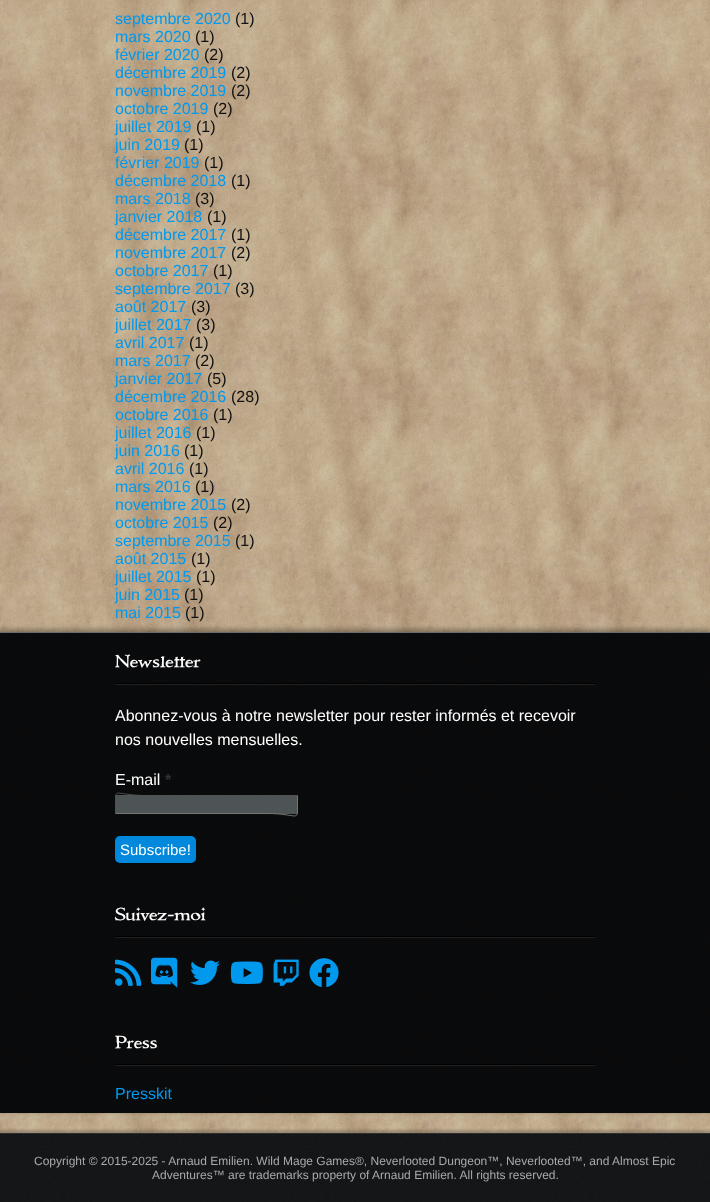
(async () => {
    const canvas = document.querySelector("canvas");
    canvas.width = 710;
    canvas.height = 1202;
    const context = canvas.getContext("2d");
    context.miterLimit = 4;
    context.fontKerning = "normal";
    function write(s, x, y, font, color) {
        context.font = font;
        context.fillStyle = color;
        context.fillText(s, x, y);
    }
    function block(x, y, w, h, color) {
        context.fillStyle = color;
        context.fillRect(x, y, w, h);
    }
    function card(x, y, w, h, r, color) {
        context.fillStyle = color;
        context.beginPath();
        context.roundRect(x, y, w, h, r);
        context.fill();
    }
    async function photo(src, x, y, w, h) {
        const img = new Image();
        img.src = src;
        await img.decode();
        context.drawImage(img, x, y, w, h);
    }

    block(0, 0, 710, 1202, "rgb(255, 255, 255)");
    await photo("media/1.png", 0, 0, 710, 1133);
    write("septembre 2020", 115, 24, "16px Liberation Sans", "rgb(0, 153, 238)");
    write("(1)", 235, 24, "16px Liberation Sans", "rgb(17, 17, 17)");
    write("mars 2020", 115, 42, "16px Liberation Sans", "rgb(0, 153, 238)");
    write("(1)", 195, 42, "16px Liberation Sans", "rgb(17, 17, 17)");
    write("février 2020", 115, 60, "16px Liberation Sans", "rgb(0, 153, 238)");
    write("(2)", 204, 60, "16px Liberation Sans", "rgb(17, 17, 17)");
    write("décembre 2019", 115, 78, "16px Liberation Sans", "rgb(0, 153, 238)");
    write("(2)", 231, 78, "16px Liberation Sans", "rgb(17, 17, 17)");
    write("novembre 2019", 115, 96, "16px Liberation Sans", "rgb(0, 153, 238)");
    write("(2)", 231, 96, "16px Liberation Sans", "rgb(17, 17, 17)");
    write("octobre 2019", 115, 114, "16px Liberation Sans", "rgb(0, 153, 238)");
    write("(2)", 213, 114, "16px Liberation Sans", "rgb(17, 17, 17)");
    write("juillet 2019", 115, 132, "16px Liberation Sans", "rgb(0, 153, 238)");
    write("(1)", 196, 132, "16px Liberation Sans", "rgb(17, 17, 17)");
    write("juin 2019", 115, 150, "16px Liberation Sans", "rgb(0, 153, 238)");
    write("(1)", 184, 150, "16px Liberation Sans", "rgb(17, 17, 17)");
    write("février 2019", 115, 168, "16px Liberation Sans", "rgb(0, 153, 238)");
    write("(1)", 204, 168, "16px Liberation Sans", "rgb(17, 17, 17)");
    write("décembre 2018", 115, 186, "16px Liberation Sans", "rgb(0, 153, 238)");
    write("(1)", 231, 186, "16px Liberation Sans", "rgb(17, 17, 17)");
    write("mars 2018", 115, 204, "16px Liberation Sans", "rgb(0, 153, 238)");
    write("(3)", 195, 204, "16px Liberation Sans", "rgb(17, 17, 17)");
    write("janvier 2018", 115, 222, "16px Liberation Sans", "rgb(0, 153, 238)");
    write("(1)", 207, 222, "16px Liberation Sans", "rgb(17, 17, 17)");
    write("décembre 2017", 115, 240, "16px Liberation Sans", "rgb(0, 153, 238)");
    write("(1)", 231, 240, "16px Liberation Sans", "rgb(17, 17, 17)");
    write("novembre 2017", 115, 258, "16px Liberation Sans", "rgb(0, 153, 238)");
    write("(2)", 231, 258, "16px Liberation Sans", "rgb(17, 17, 17)");
    write("octobre 2017", 115, 276, "16px Liberation Sans", "rgb(0, 153, 238)");
    write("(1)", 213, 276, "16px Liberation Sans", "rgb(17, 17, 17)");
    write("septembre 2017", 115, 294, "16px Liberation Sans", "rgb(0, 153, 238)");
    write("(3)", 235, 294, "16px Liberation Sans", "rgb(17, 17, 17)");
    write("août 2017", 115, 312, "16px Liberation Sans", "rgb(0, 153, 238)");
    write("(3)", 191, 312, "16px Liberation Sans", "rgb(17, 17, 17)");
    write("juillet 2017", 115, 330, "16px Liberation Sans", "rgb(0, 153, 238)");
    write("(3)", 196, 330, "16px Liberation Sans", "rgb(17, 17, 17)");
    write("avril 2017", 115, 348, "16px Liberation Sans", "rgb(0, 153, 238)");
    write("(1)", 189, 348, "16px Liberation Sans", "rgb(17, 17, 17)");
    write("mars 2017", 115, 366, "16px Liberation Sans", "rgb(0, 153, 238)");
    write("(2)", 195, 366, "16px Liberation Sans", "rgb(17, 17, 17)");
    write("janvier 2017", 115, 384, "16px Liberation Sans", "rgb(0, 153, 238)");
    write("(5)", 207, 384, "16px Liberation Sans", "rgb(17, 17, 17)");
    write("décembre 2016", 115, 402, "16px Liberation Sans", "rgb(0, 153, 238)");
    write("(28)", 231, 402, "16px Liberation Sans", "rgb(17, 17, 17)");
    write("octobre 2016", 115, 420, "16px Liberation Sans", "rgb(0, 153, 238)");
    write("(1)", 213, 420, "16px Liberation Sans", "rgb(17, 17, 17)");
    write("juillet 2016", 115, 438, "16px Liberation Sans", "rgb(0, 153, 238)");
    write("(1)", 196, 438, "16px Liberation Sans", "rgb(17, 17, 17)");
    write("juin 2016", 115, 456, "16px Liberation Sans", "rgb(0, 153, 238)");
    write("(1)", 184, 456, "16px Liberation Sans", "rgb(17, 17, 17)");
    write("avril 2016", 115, 474, "16px Liberation Sans", "rgb(0, 153, 238)");
    write("(1)", 189, 474, "16px Liberation Sans", "rgb(17, 17, 17)");
    write("mars 2016", 115, 492, "16px Liberation Sans", "rgb(0, 153, 238)");
    write("(1)", 195, 492, "16px Liberation Sans", "rgb(17, 17, 17)");
    write("novembre 2015", 115, 510, "16px Liberation Sans", "rgb(0, 153, 238)");
    write("(2)", 231, 510, "16px Liberation Sans", "rgb(17, 17, 17)");
    write("octobre 2015", 115, 528, "16px Liberation Sans", "rgb(0, 153, 238)");
    write("(2)", 213, 528, "16px Liberation Sans", "rgb(17, 17, 17)");
    write("septembre 2015", 115, 546, "16px Liberation Sans", "rgb(0, 153, 238)");
    write("(1)", 235, 546, "16px Liberation Sans", "rgb(17, 17, 17)");
    write("août 2015", 115, 564, "16px Liberation Sans", "rgb(0, 153, 238)");
    write("(1)", 191, 564, "16px Liberation Sans", "rgb(17, 17, 17)");
    write("juillet 2015", 115, 582, "16px Liberation Sans", "rgb(0, 153, 238)");
    write("(1)", 196, 582, "16px Liberation Sans", "rgb(17, 17, 17)");
    write("juin 2015", 115, 600, "16px Liberation Sans", "rgb(0, 153, 238)");
    write("(1)", 184, 600, "16px Liberation Sans", "rgb(17, 17, 17)");
    write("mai 2015", 115, 618, "16px Liberation Sans", "rgb(0, 153, 238)");
    context.fillStyle = "rgba(0, 0, 0, 0.3)";
    context.filter = "blur(2.5px)";
    context.beginPath();
    context.rect(-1, 629, 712, 483);
    context.fill();
    context.filter = "none";
    write("(1)", 185, 618, "16px Liberation Sans", "rgb(17, 17, 17)");
    await photo("media/2.png", 0, 632, 710, 481);
    block(0, 632, 710, 1, "rgba(255, 255, 255, 0.4)");
    block(115, 684, 480, 1, "rgb(34, 34, 34)");
    block(115, 683, 480, 1, "rgb(0, 0, 0)");
    write("Newsletter", 115, 667, "18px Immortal", "rgb(255, 255, 255)");
    write("Abonnez-vous à notre newsletter pour rester informés et recevoir", 115, 721, "16px Liberation Sans", "rgb(255, 255, 255)");
    write("nos nouvelles mensuelles.", 115, 745, "16px Liberation Sans", "rgb(255, 255, 255)");
    write("E-mail", 115, 785, "16px Liberation Sans", "rgb(255, 255, 255)");
    write("*", 165, 785, "bold 16px Liberation Sans", "rgb(51, 51, 51)");
    card(115, 795, 183, 19, 1, "rgb(78, 84, 86)");
    context.beginPath();
    context.moveTo(297.5, 795.5);
    context.lineTo(297.5, 804.5);
    context.bezierCurveTo(297.5, 823, 299, 813.5, 267, 813.5);
    context.lineTo(115.5, 813.5);
    context.strokeStyle = "rgb(118, 118, 118)";
    context.stroke();
    context.beginPath();
    context.moveTo(115.5, 813.5);
    context.lineTo(115.5, 804.5);
    context.bezierCurveTo(115.5, 786, 114, 795.5, 146, 795.5);
    context.lineTo(297.5, 795.5);
    context.strokeStyle = "rgb(79, 79, 79)";
    context.stroke();
    card(115, 836, 81, 27, 5, "rgb(0, 136, 221)");
    write("Subscribe!", 120, 855, "15px Liberation Sans", "rgb(255, 255, 255)");
    block(115, 937, 480, 1, "rgb(34, 34, 34)");
    block(115, 936, 480, 1, "rgb(0, 0, 0)");
    write("Suivez-moi", 115, 920, "18px Immortal", "rgb(255, 255, 255)");
    await photo("media/3.png", 115, 959, 27, 27);
    await photo("media/4.png", 151, 957, 27, 31);
    await photo("media/5.png", 190, 960, 30, 25);
    await photo("media/6.png", 230, 961, 33, 23);
    await photo("media/7.png", 273, 959, 26, 27);
    await photo("media/8.png", 309, 958, 30, 29);
    block(115, 1065, 480, 1, "rgb(34, 34, 34)");
    block(115, 1064, 480, 1, "rgb(0, 0, 0)");
    write("Press", 115, 1048, "18px Immortal", "rgb(255, 255, 255)");
    write("Presskit", 115, 1099, "16px Liberation Sans", "rgb(0, 153, 238)");
    context.fillStyle = "rgba(0, 0, 0, 0.2)";
    context.filter = "blur(1px)";
    context.beginPath();
    context.rect(-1, 1130, 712, 71);
    context.fill();
    context.filter = "none";
    await photo("media/9.png", 0, 1133, 710, 69);
    block(0, 1133, 710, 1, "rgba(255, 255, 255, 0.1)");
    write("Copyright © 2015-2025 - Arnaud Emilien. Wild Mage Games®, Neverlooted Dungeon™, Neverlooted™, and Almost Epic", 34, 1165, "12px Liberation Sans", "rgb(170, 170, 170)");
    write("Adventures™ are trademarks property of Arnaud Emilien. All rights reserved.", 152, 1179, "12px Liberation Sans", "rgb(170, 170, 170)");
})();
